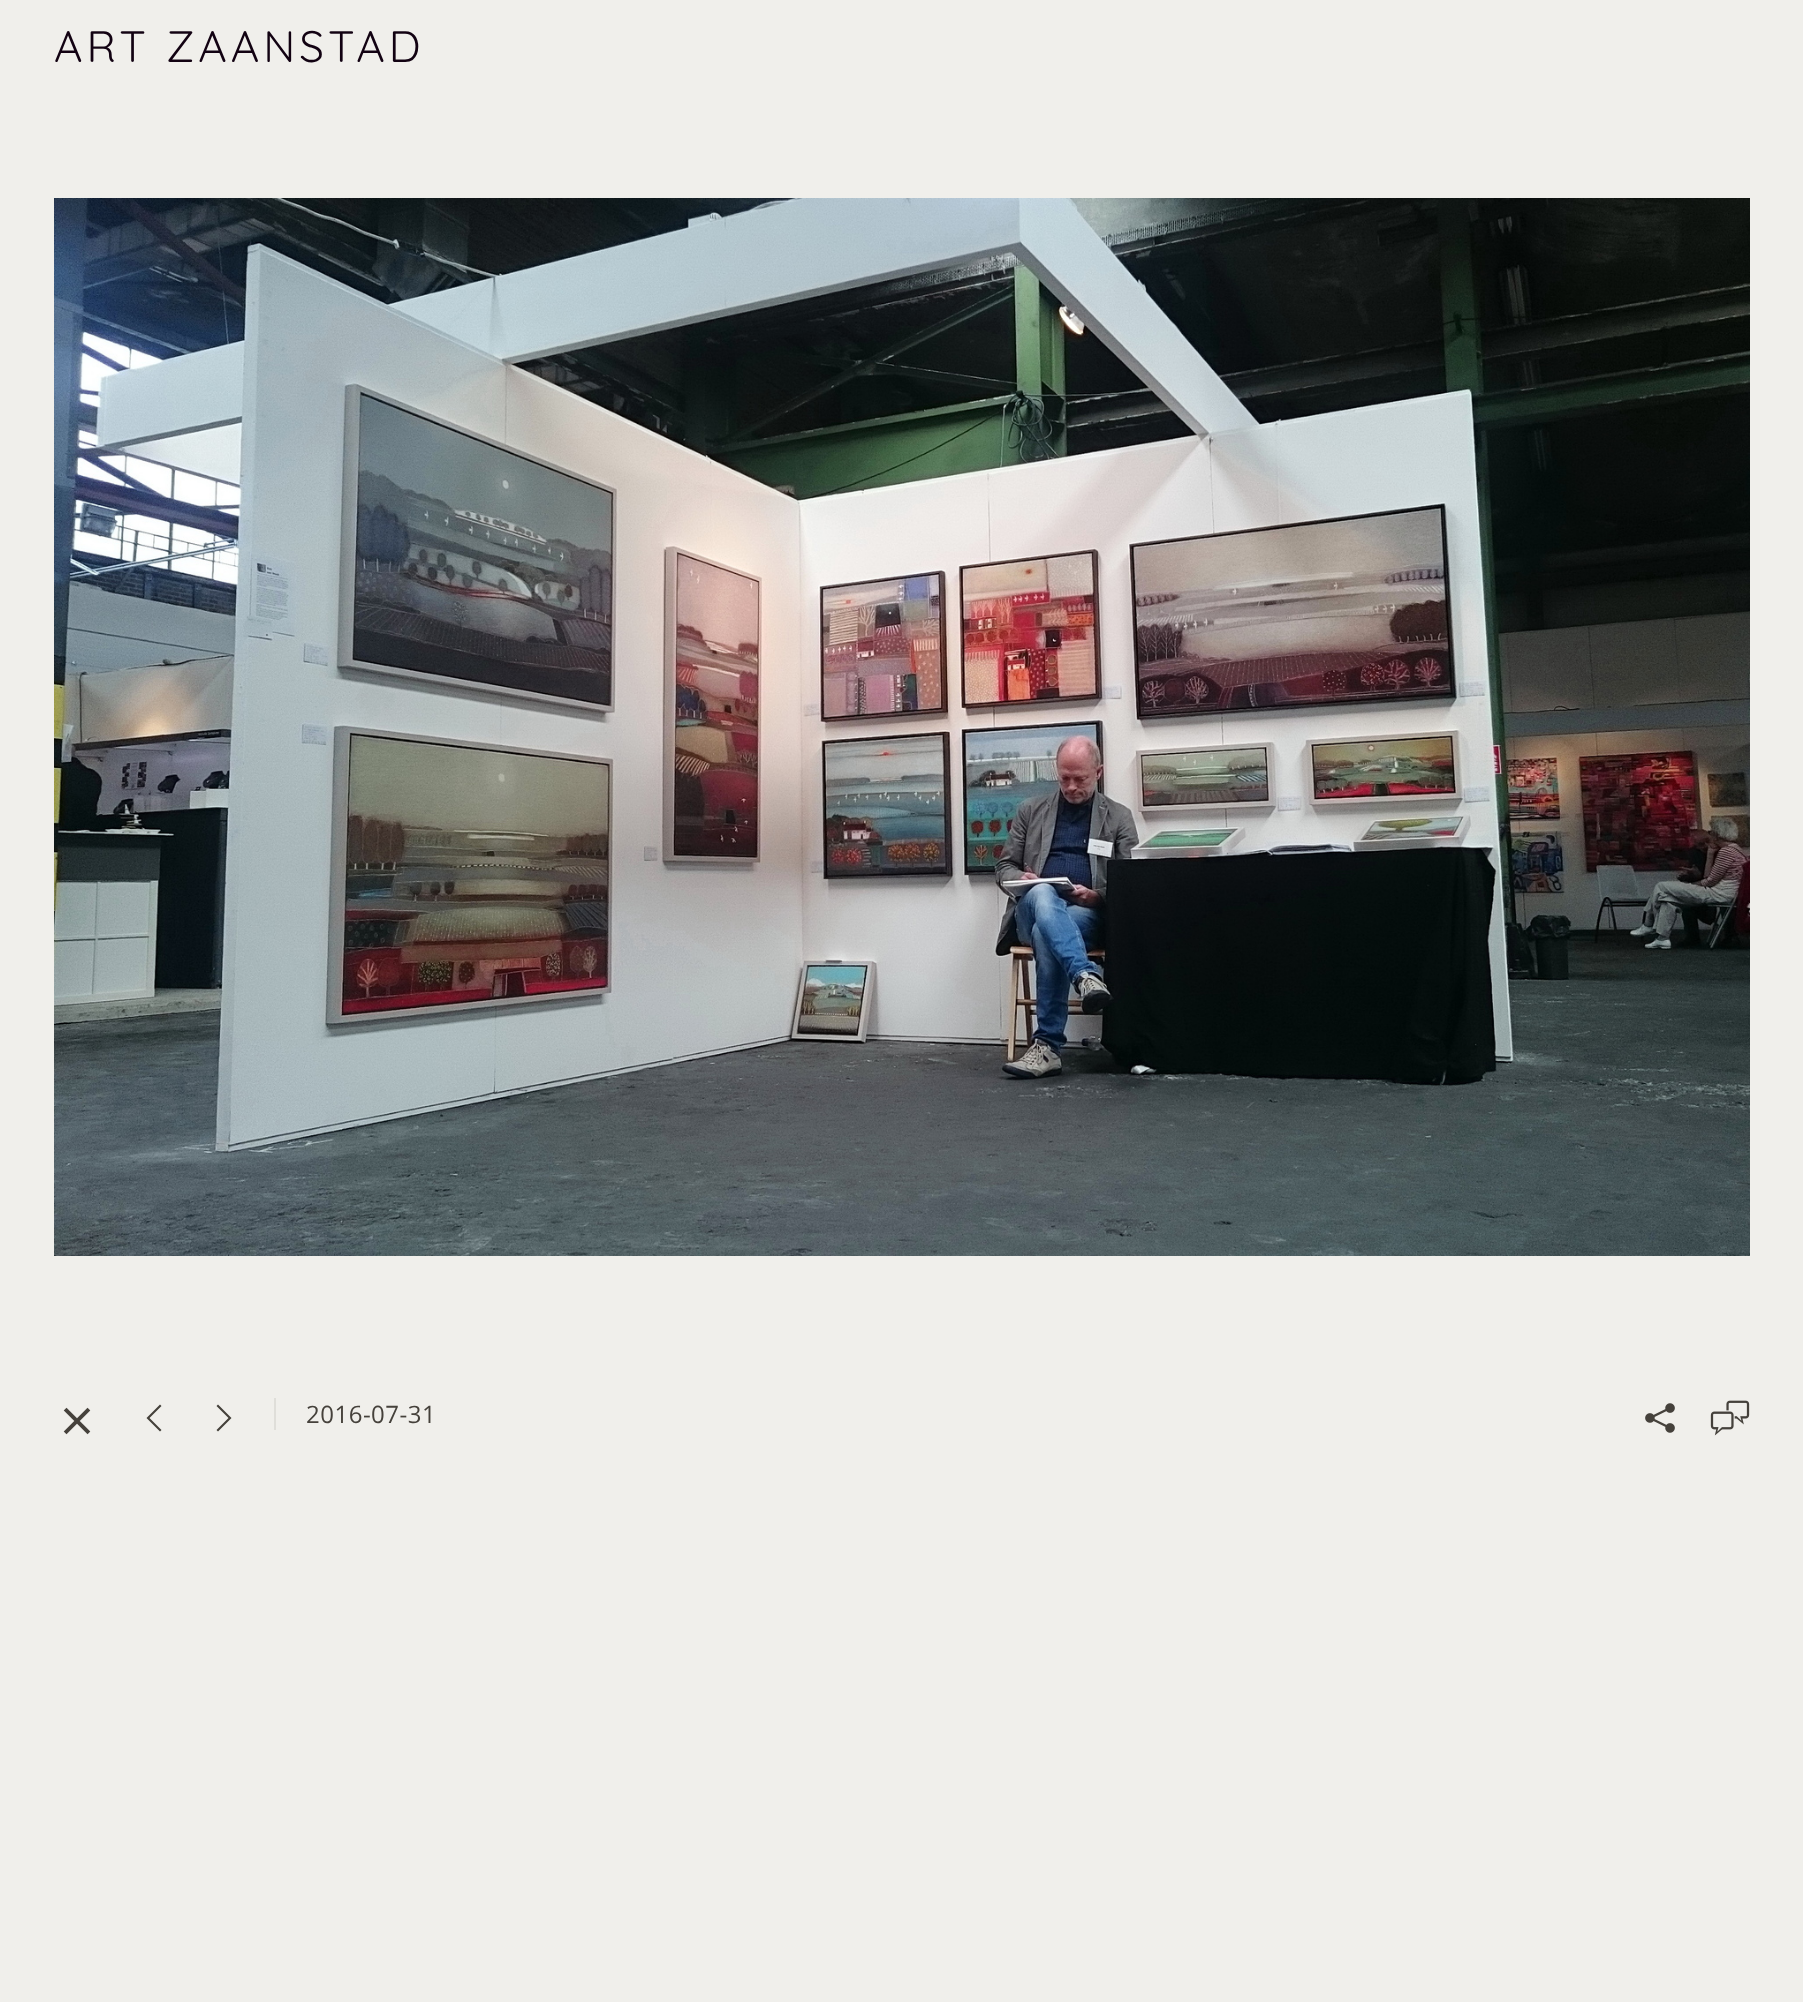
(async () => {
    const canvas = document.querySelector("canvas");
    canvas.width = 1803;
    canvas.height = 2002;
    const context = canvas.getContext("2d");
    context.miterLimit = 4;
    context.fontKerning = "normal";
    function write(s, x, y, font, color) {
        context.font = font;
        context.fillStyle = color;
        context.fillText(s, x, y);
    }
    function block(x, y, w, h, color) {
        context.fillStyle = color;
        context.fillRect(x, y, w, h);
    }
    async function photo(src, x, y, w, h) {
        const img = new Image();
        img.src = src;
        await img.decode();
        context.drawImage(img, x, y, w, h);
    }

    block(0, 0, 1803, 2002, "rgb(240, 239, 235)");
    context.letterSpacing = "4px";
    write("ART ZAANSTAD", 54, 62, "44px Quicksand", "rgb(18, 2, 18)");
    await photo("media/1.png", 54, 198, 1696, 1058);
    await photo("media/2.png", 63, 1407, 28, 28);
    context.fillStyle = "rgb(69, 65, 59)";
    context.beginPath();
    context.moveTo(160, 1431.5);
    context.lineTo(161.5, 1430);
    context.lineTo(149.5, 1418);
    context.lineTo(161.5, 1406);
    context.lineTo(160, 1404.5);
    context.lineTo(146.5, 1418);
    context.closePath();
    context.fill();
    context.beginPath();
    context.moveTo(231.5, 1418);
    context.lineTo(218, 1404.5);
    context.lineTo(216.5, 1406);
    context.lineTo(228.5, 1418);
    context.lineTo(216.5, 1430);
    context.lineTo(218, 1431.5);
    context.closePath();
    context.fill();
    block(274, 1398, 2, 32, "rgb(223, 222, 217)");
    context.letterSpacing = "0.5px";
    write("2016-07-31", 306, 1423, "24px Open Sans", "rgb(69, 65, 59)");
    await photo("media/3.png", 1645, 1403, 30, 30);
    await photo("media/4.png", 1710, 1400, 40, 36);
})();
